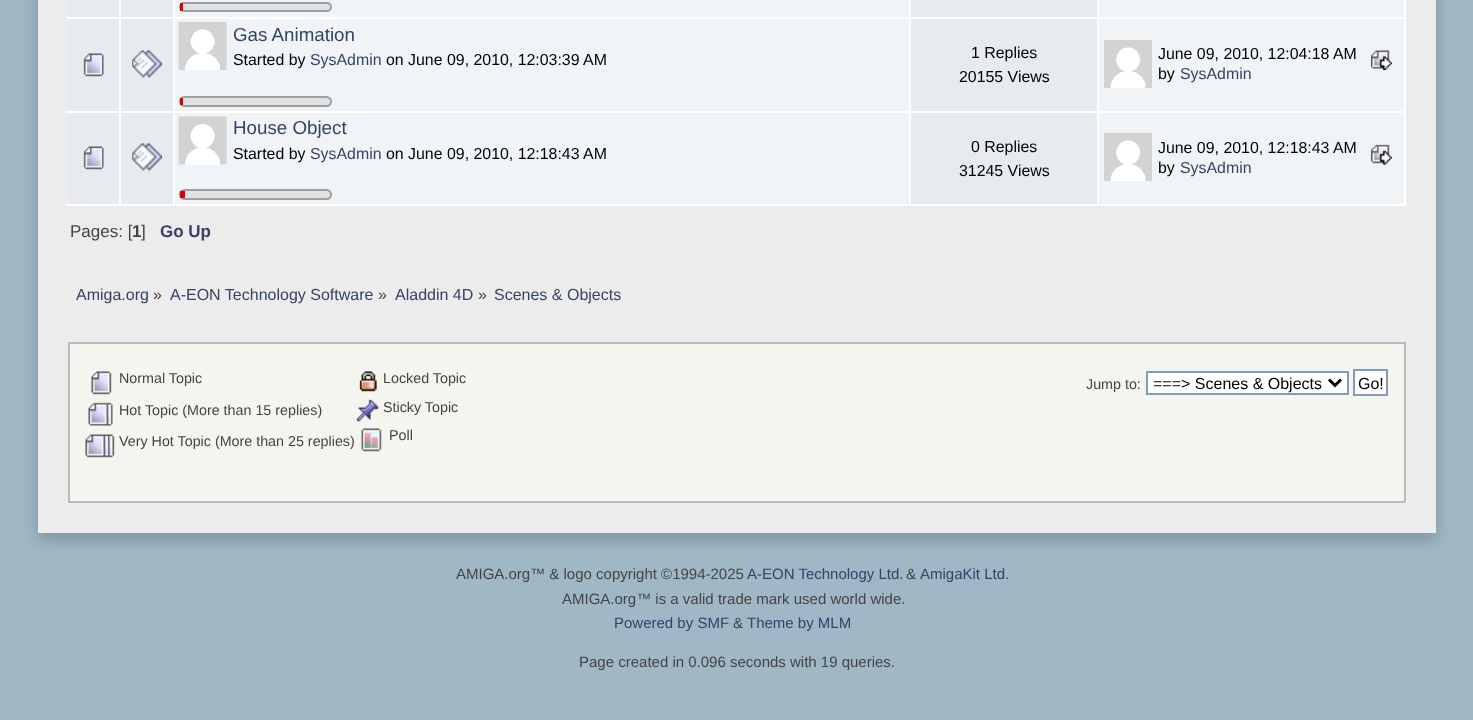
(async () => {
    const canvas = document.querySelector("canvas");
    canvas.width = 1473;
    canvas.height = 720;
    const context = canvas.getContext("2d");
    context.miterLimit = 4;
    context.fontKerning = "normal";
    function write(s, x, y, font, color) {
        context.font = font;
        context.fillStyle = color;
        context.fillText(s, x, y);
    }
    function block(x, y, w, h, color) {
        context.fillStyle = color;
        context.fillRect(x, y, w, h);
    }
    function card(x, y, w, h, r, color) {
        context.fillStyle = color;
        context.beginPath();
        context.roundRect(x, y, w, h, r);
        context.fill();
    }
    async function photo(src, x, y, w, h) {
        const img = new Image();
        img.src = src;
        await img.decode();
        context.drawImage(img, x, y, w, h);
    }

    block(0, 0, 1473, 720, "rgb(160, 183, 198)");
    context.fillStyle = "rgba(0, 0, 0, 0.2)";
    context.filter = "blur(7.5px)";
    context.beginPath();
    context.rect(38, -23, 1398, 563);
    context.fill();
    context.filter = "none";
    block(38, 0, 1398, 533, "rgb(236, 236, 236)");
    block(68, 0, 51, 17, "rgb(231, 234, 239)");
    block(1404, 0, 2, 206, "rgb(255, 255, 255)");
    block(1097, 204, 309, 2, "rgb(255, 255, 255)");
    block(1097, 111, 2, 95, "rgb(255, 255, 255)");
    block(1097, 111, 309, 2, "rgb(255, 255, 255)");
    block(1097, 17, 2, 96, "rgb(255, 255, 255)");
    block(1097, 17, 309, 2, "rgb(255, 255, 255)");
    block(1097, 0, 2, 18, "rgb(255, 255, 255)");
    block(909, 204, 189, 2, "rgb(255, 255, 255)");
    block(909, 111, 2, 95, "rgb(255, 255, 255)");
    block(909, 111, 189, 2, "rgb(255, 255, 255)");
    block(909, 17, 2, 96, "rgb(255, 255, 255)");
    block(909, 17, 189, 2, "rgb(255, 255, 255)");
    block(909, 0, 2, 18, "rgb(255, 255, 255)");
    block(173, 204, 738, 2, "rgb(255, 255, 255)");
    block(173, 111, 2, 95, "rgb(255, 255, 255)");
    block(173, 111, 738, 2, "rgb(255, 255, 255)");
    block(173, 17, 2, 96, "rgb(255, 255, 255)");
    block(173, 17, 738, 2, "rgb(255, 255, 255)");
    block(173, 0, 2, 18, "rgb(255, 255, 255)");
    block(119, 204, 55, 2, "rgb(255, 255, 255)");
    block(119, 111, 2, 95, "rgb(255, 255, 255)");
    block(119, 111, 55, 2, "rgb(255, 255, 255)");
    block(119, 17, 2, 96, "rgb(255, 255, 255)");
    block(119, 17, 55, 2, "rgb(255, 255, 255)");
    block(119, 0, 2, 18, "rgb(255, 255, 255)");
    block(66, 17, 54, 2, "rgb(255, 255, 255)");
    block(121, 0, 52, 17, "rgb(231, 234, 239)");
    block(175, 0, 734, 17, "rgb(240, 244, 247)");
    card(179, 2, 153, 10, 5, "rgb(224, 226, 228)");
    context.beginPath();
    context.roundRect(180, 3, 151, 8, 4);
    context.strokeStyle = "rgba(0, 0, 0, 0.3)";
    context.lineWidth = 2;
    context.stroke();
    block(180, 3, 3, 8, "rgb(223, 1, 1)");
    block(911, 0, 186, 17, "rgb(231, 234, 239)");
    block(1099, 0, 305, 17, "rgb(240, 244, 247)");
    block(68, 19, 51, 92, "rgb(231, 234, 239)");
    block(66, 111, 54, 2, "rgb(255, 255, 255)");
    await photo("media/1.png", 83, 53, 21, 24);
    block(121, 19, 52, 92, "rgb(231, 234, 239)");
    await photo("media/2.png", 132, 50, 30, 28);
    block(175, 19, 734, 92, "rgb(240, 244, 247)");
    await photo("media/3.png", 178, 22, 49, 48);
    write("Gas Animation", 233, 41, "18.75px Liberation Sans", "rgb(51, 68, 102)");
    write("Started by", 233, 65, "15.9px Liberation Sans", "rgb(0, 0, 0)");
    write("SysAdmin", 310, 65, "15.9px Liberation Sans", "rgb(51, 68, 102)");
    write("on June 09, 2010, 12:03:39 AM", 386, 65, "15.9px Liberation Sans", "rgb(0, 0, 0)");
    card(179, 96, 153, 11, 5.5, "rgb(224, 226, 228)");
    context.beginPath();
    context.roundRect(180, 97, 151, 9, 4.5);
    context.stroke();
    block(180, 98, 3, 7, "rgb(223, 1, 1)");
    block(911, 19, 186, 92, "rgb(231, 234, 239)");
    write("1 Replies", 971, 58, "15.9px Liberation Sans", "rgb(0, 0, 0)");
    write("20155 Views", 959, 82, "15.9px Liberation Sans", "rgb(0, 0, 0)");
    block(1099, 19, 305, 92, "rgb(240, 244, 247)");
    await photo("media/4.png", 1104, 40, 48, 48);
    write("June 09, 2010, 12:04:18 AM", 1158, 59, "15.9px Liberation Sans", "rgb(0, 0, 0)");
    await photo("media/5.png", 1371, 50, 21, 20);
    write("by", 1158, 79, "15.9px Liberation Sans", "rgb(0, 0, 0)");
    write("SysAdmin", 1180, 79, "15.9px Liberation Sans", "rgb(51, 68, 102)");
    block(68, 113, 51, 91, "rgb(231, 234, 239)");
    block(66, 204, 54, 2, "rgb(255, 255, 255)");
    await photo("media/1.png", 83, 146, 21, 24);
    block(121, 113, 52, 91, "rgb(231, 234, 239)");
    await photo("media/2.png", 132, 143, 30, 28);
    block(175, 113, 734, 91, "rgb(240, 244, 247)");
    await photo("media/6.png", 178, 116, 49, 49);
    write("House Object", 233, 134, "18.75px Liberation Sans", "rgb(51, 68, 102)");
    write("Started by", 233, 159, "15.9px Liberation Sans", "rgb(0, 0, 0)");
    write("SysAdmin", 310, 159, "15.9px Liberation Sans", "rgb(51, 68, 102)");
    write("on June 09, 2010, 12:18:43 AM", 386, 159, "15.9px Liberation Sans", "rgb(0, 0, 0)");
    card(179, 189, 153, 11, 5.5, "rgb(224, 226, 228)");
    context.beginPath();
    context.roundRect(180, 190, 151, 9, 4.5);
    context.stroke();
    block(180, 191, 5, 7, "rgb(223, 1, 1)");
    block(911, 113, 186, 91, "rgb(231, 234, 239)");
    write("0 Replies", 971, 152, "15.9px Liberation Sans", "rgb(0, 0, 0)");
    write("31245 Views", 959, 176, "15.9px Liberation Sans", "rgb(0, 0, 0)");
    block(1099, 113, 305, 91, "rgb(240, 244, 247)");
    await photo("media/4.png", 1104, 133, 48, 48);
    write("June 09, 2010, 12:18:43 AM", 1158, 153, "15.9px Liberation Sans", "rgb(0, 0, 0)");
    await photo("media/7.png", 1371, 144, 21, 21);
    write("by", 1158, 173, "15.9px Liberation Sans", "rgb(0, 0, 0)");
    write("SysAdmin", 1180, 173, "15.9px Liberation Sans", "rgb(51, 68, 102)");
    write("Pages: [", 70, 237, "17px Liberation Sans", "rgb(68, 68, 68)");
    write("1", 132, 237, "bold 17px Liberation Sans", "rgb(68, 68, 68)");
    write("]", 141, 237, "17px Liberation Sans", "rgb(68, 68, 68)");
    write("Go Up", 160, 237, "bold 17px Liberation Sans", "rgb(51, 68, 102)");
    write("Amiga.org", 76, 300, "16px Liberation Sans", "rgb(51, 68, 102)");
    write("»", 153, 300, "16px Liberation Sans", "rgb(68, 68, 68)");
    write("A-EON Technology Software", 170, 300, "16px Liberation Sans", "rgb(51, 68, 102)");
    write("»", 378, 300, "16px Liberation Sans", "rgb(68, 68, 68)");
    write("Aladdin 4D", 395, 300, "16px Liberation Sans", "rgb(51, 68, 102)");
    write("»", 478, 300, "16px Liberation Sans", "rgb(68, 68, 68)");
    write("Scenes & Objects", 494, 300, "16px Liberation Sans", "rgb(51, 68, 102)");
    context.fillStyle = "rgb(245, 245, 240)";
    context.beginPath();
    context.rect(69, 343, 1336, 159);
    context.fill();
    context.strokeStyle = "rgb(187, 187, 187)";
    context.stroke();
    await photo("media/8.png", 91, 371, 21, 24);
    write("Normal Topic", 119, 383, "14.3px Liberation Sans", "rgb(68, 68, 68)");
    await photo("media/9.png", 88, 402, 25, 24);
    write("Hot Topic (More than 15 replies)", 119, 415, "14.3px Liberation Sans", "rgb(68, 68, 68)");
    await photo("media/10.png", 85, 434, 30, 24);
    write("Very Hot Topic (More than 25 replies)", 119, 446, "14.3px Liberation Sans", "rgb(68, 68, 68)");
    await photo("media/11.png", 359, 371, 18, 21);
    write("Locked Topic", 383, 383, "14.3px Liberation Sans", "rgb(68, 68, 68)");
    await photo("media/12.png", 356, 399, 23, 23);
    write("Sticky Topic", 383, 412, "14.3px Liberation Sans", "rgb(68, 68, 68)");
    await photo("media/13.png", 361, 428, 21, 24);
    write("Poll", 389, 440, "14.3px Liberation Sans", "rgb(68, 68, 68)");
    write("Jump to:", 1086, 389, "14.3px Liberation Sans", "rgb(68, 68, 68)");
    context.fillStyle = "rgb(255, 255, 255)";
    context.beginPath();
    context.rect(1147, 372, 201, 22);
    context.fill();
    context.strokeStyle = "rgb(127, 157, 185)";
    context.stroke();
    context.beginPath();
    context.moveTo(1329, 379.5);
    context.lineTo(1335, 385.5);
    context.lineTo(1341, 379.5);
    context.strokeStyle = "rgb(0, 0, 0)";
    context.lineWidth = 3;
    context.stroke();
    write("===> Scenes & Objects", 1153, 389, "16px Liberation Sans", "rgb(0, 0, 0)");
    context.fillStyle = "rgb(255, 255, 255)";
    context.beginPath();
    context.rect(1354, 370, 33, 25);
    context.fill();
    context.strokeStyle = "rgb(127, 157, 185)";
    context.lineWidth = 2;
    context.stroke();
    write("Go!", 1358, 389, "16px Liberation Sans", "rgb(0, 0, 0)");
    write("AMIGA.org™ & logo copyright ©1994-2025", 456, 579, "15px Liberation Sans", "rgb(68, 68, 68)");
    write("A-EON Technology Ltd.", 747, 579, "15px Liberation Sans", "rgb(51, 68, 102)");
    write("&", 906, 579, "15px Liberation Sans", "rgb(68, 68, 68)");
    write("AmigaKit Ltd.", 920, 579, "15px Liberation Sans", "rgb(51, 68, 102)");
    write("AMIGA.org™ is a valid trade mark used world wide.", 562, 604, "15px Liberation Sans", "rgb(68, 68, 68)");
    write("Powered by SMF", 614, 628, "15px Liberation Sans", "rgb(51, 68, 102)");
    write("&", 733, 628, "15px Liberation Sans", "rgb(68, 68, 68)");
    write("Theme by MLM", 747, 628, "15px Liberation Sans", "rgb(51, 68, 102)");
    write("Page created in 0.096 seconds with 19 queries.", 579, 667, "15px Liberation Sans", "rgb(68, 68, 68)");
})();
